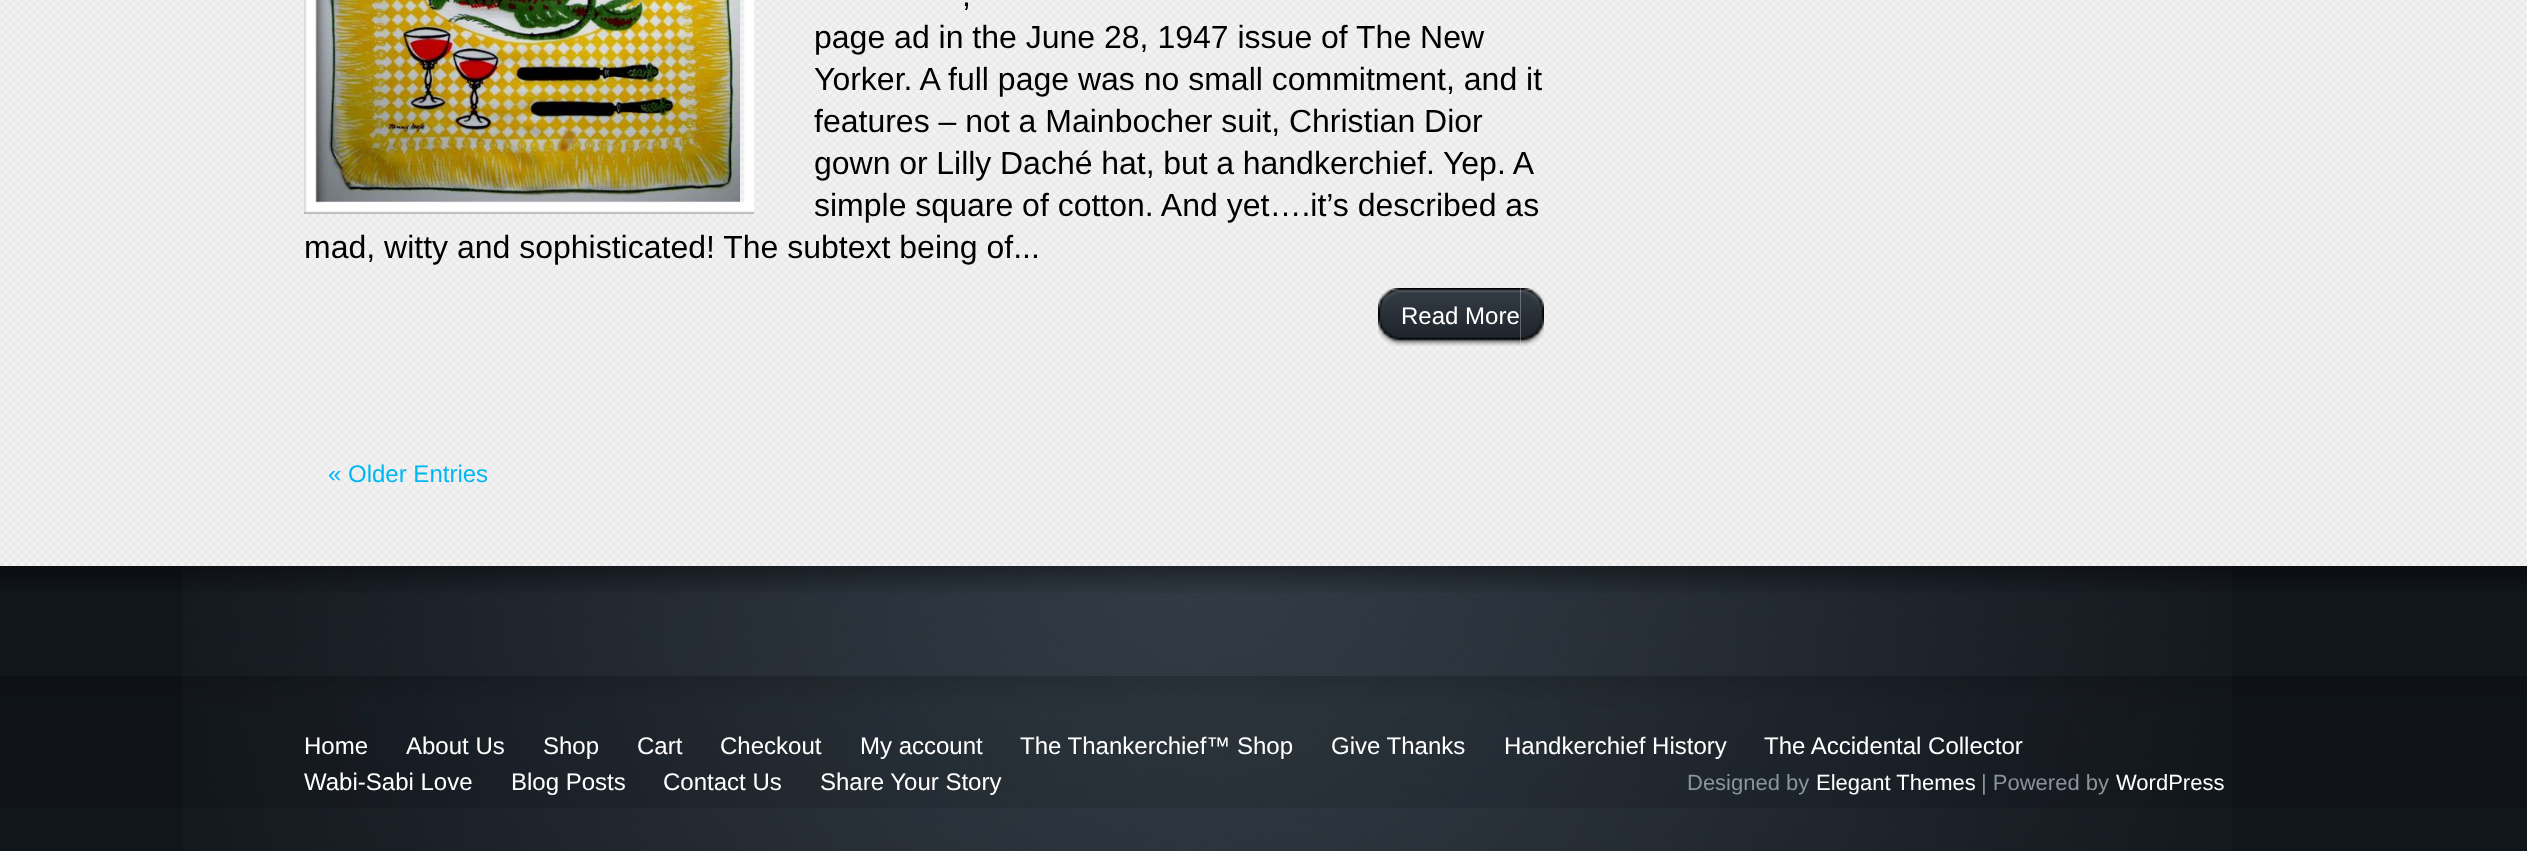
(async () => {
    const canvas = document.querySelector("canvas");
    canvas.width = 2527;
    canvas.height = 851;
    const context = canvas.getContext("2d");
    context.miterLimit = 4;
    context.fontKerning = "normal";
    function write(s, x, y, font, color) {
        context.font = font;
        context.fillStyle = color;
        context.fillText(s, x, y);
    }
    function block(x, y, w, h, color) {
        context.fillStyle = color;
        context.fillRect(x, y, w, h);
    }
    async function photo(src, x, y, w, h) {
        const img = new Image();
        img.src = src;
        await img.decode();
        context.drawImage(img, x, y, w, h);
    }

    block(0, 0, 2527, 851, "rgb(255, 255, 255)");
    await photo("media/1.png", 0, 0, 2527, 566);
    await photo("media/3.png", 316, 0, 424, 202);
    await photo("media/2.png", 304, 0, 450, 214);
    write(",", 962, 6, "32px Liberation Sans", "rgb(0, 0, 0)");
    write("page ad in the June 28, 1947 issue of The New", 814, 48, "32px Liberation Sans", "rgb(0, 0, 0)");
    write("Yorker. A full page was no small commitment, and it", 814, 90, "32px Liberation Sans", "rgb(0, 0, 0)");
    write("features – not a Mainbocher suit, Christian Dior", 814, 132, "32px Liberation Sans", "rgb(0, 0, 0)");
    context.wordSpacing = "-0.25px";
    write("gown or Lilly Daché hat, but a handkerchief. Yep. A", 814, 174, "32px Liberation Sans", "rgb(0, 0, 0)");
    context.wordSpacing = "0px";
    write("simple square of cotton. And yet….it’s described as", 814, 216, "32px Liberation Sans", "rgb(0, 0, 0)");
    write("mad, witty and sophisticated! The subtext being of...", 304, 258, "32px Liberation Sans", "rgb(0, 0, 0)");
    await photo("media/4.png", 1519, 288, 25, 58);
    await photo("media/5.png", 1378, 288, 142, 58);
    write("Read More", 1401, 324, "24px Liberation Sans", "rgb(255, 255, 255)");
    write("« Older Entries", 328, 482, "24px Liberation Sans", "rgb(0, 183, 243)");
    block(0, 566, 2527, 285, "rgb(17, 22, 28)");
    await photo("media/6.png", 182, 566, 2050, 285);
    await photo("media/7.png", 0, 566, 2527, 27);
    await photo("media/8.png", 0, 676, 2527, 132);
    write("Home", 304, 754, "24px Liberation Sans", "rgb(255, 255, 255)");
    write("About Us", 406, 754, "24px Liberation Sans", "rgb(255, 255, 255)");
    write("Shop", 543, 754, "24px Liberation Sans", "rgb(255, 255, 255)");
    write("Cart", 637, 754, "24px Liberation Sans", "rgb(255, 255, 255)");
    write("Checkout", 720, 754, "24px Liberation Sans", "rgb(255, 255, 255)");
    write("My account", 860, 754, "24px Liberation Sans", "rgb(255, 255, 255)");
    write("The Thankerchief™ Shop", 1020, 754, "24px Liberation Sans", "rgb(255, 255, 255)");
    write("Give Thanks", 1331, 754, "24px Liberation Sans", "rgb(255, 255, 255)");
    write("Handkerchief History", 1504, 754, "24px Liberation Sans", "rgb(255, 255, 255)");
    write("The Accidental Collector", 1764, 754, "24px Liberation Sans", "rgb(255, 255, 255)");
    write("Wabi-Sabi Love", 304, 790, "24px Liberation Sans", "rgb(255, 255, 255)");
    write("Blog Posts", 511, 790, "24px Liberation Sans", "rgb(255, 255, 255)");
    write("Contact Us", 663, 790, "24px Liberation Sans", "rgb(255, 255, 255)");
    write("Share Your Story", 820, 790, "24px Liberation Sans", "rgb(255, 255, 255)");
    write("Designed by", 1687, 790, "22px Liberation Sans", "rgb(139, 148, 157)");
    write("Elegant Themes", 1816, 790, "22px Liberation Sans", "rgb(255, 255, 255)");
    write("| Powered by", 1981, 790, "22px Liberation Sans", "rgb(139, 148, 157)");
    write("WordPress", 2116, 790, "22px Liberation Sans", "rgb(255, 255, 255)");
})();
